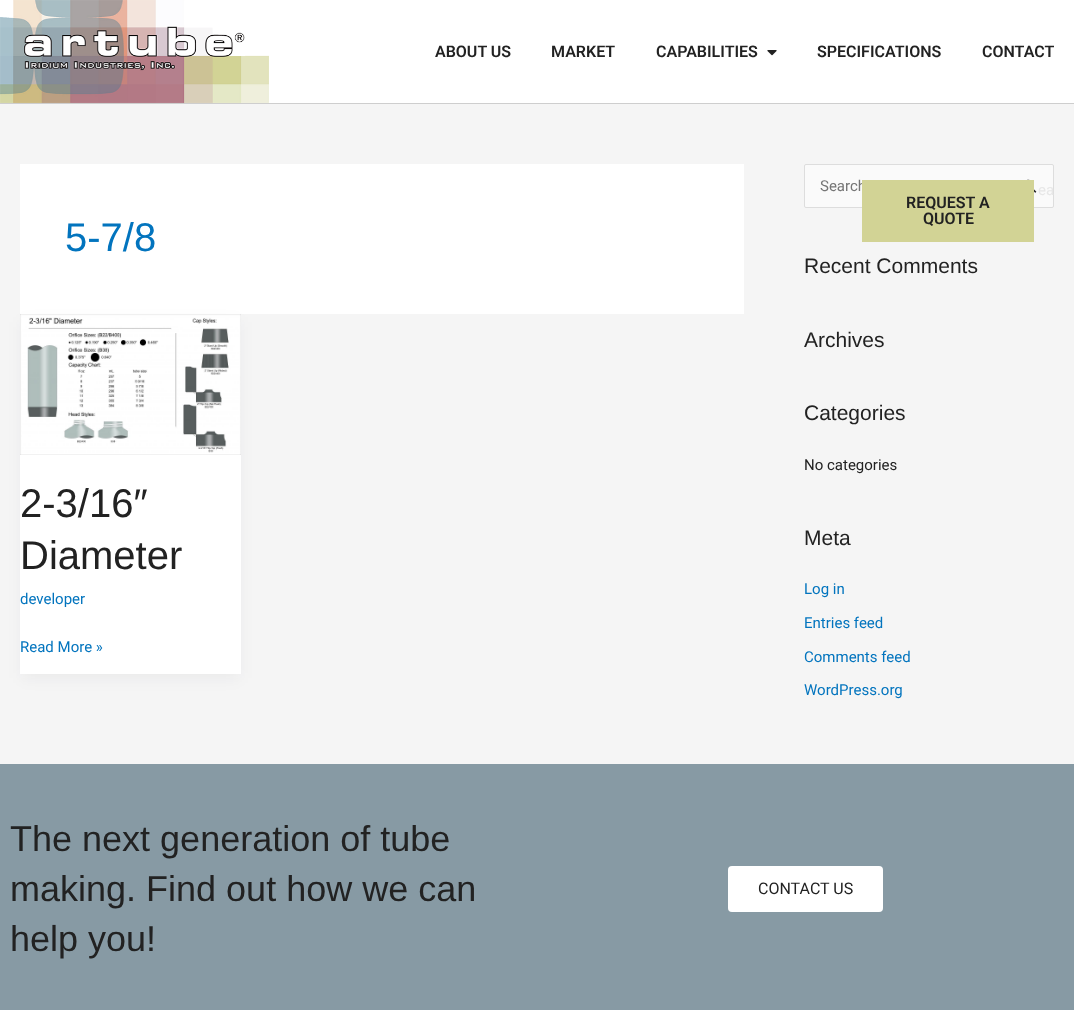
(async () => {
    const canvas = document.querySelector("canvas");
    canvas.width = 1074;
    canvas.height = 1010;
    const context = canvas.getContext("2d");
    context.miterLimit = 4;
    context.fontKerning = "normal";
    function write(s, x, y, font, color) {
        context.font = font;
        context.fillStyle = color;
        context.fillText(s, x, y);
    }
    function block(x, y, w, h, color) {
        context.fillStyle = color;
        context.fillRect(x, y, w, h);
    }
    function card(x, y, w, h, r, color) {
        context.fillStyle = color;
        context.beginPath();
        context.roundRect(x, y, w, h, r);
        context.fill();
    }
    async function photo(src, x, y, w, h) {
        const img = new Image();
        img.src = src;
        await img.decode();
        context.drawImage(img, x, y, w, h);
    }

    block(0, 0, 1074, 1010, "rgb(245, 245, 245)");
    block(0, 0, 1074, 103, "rgb(255, 255, 255)");
    block(0, 103, 1074, 1, "rgb(206, 206, 206)");
    await photo("media/1.png", 0, 0, 269, 103);
    write("ABOUT US", 435, 57, "600 16px Roboto", "rgb(34, 34, 34)");
    write("MARKET", 551, 57, "600 16px Roboto", "rgb(34, 34, 34)");
    write("CAPABILITIES", 656, 57, "600 16px Roboto", "rgb(34, 34, 34)");
    await photo("media/2.png", 767, 50, 10, 6);
    write("SPECIFICATIONS", 817, 57, "600 16px Roboto", "rgb(34, 34, 34)");
    write("CONTACT", 982, 57, "600 16px Roboto", "rgb(34, 34, 34)");
    context.fillStyle = "rgb(250, 250, 250)";
    context.beginPath();
    context.roundRect(804.5, 164.5, 249, 43, 1.5);
    context.fill();
    context.strokeStyle = "rgb(221, 221, 221)";
    context.stroke();
    write("Search", 820, 191, "15px Roboto", "rgb(117, 117, 117)");
    await photo("media/4.png", 1027, 179, 10, 14);
    block(862, 180, 172, 62, "rgb(210, 211, 149)");
    write("REQUEST A", 906, 208, "600 16px Roboto", "rgb(34, 34, 34)");
    write("QUOTE", 923, 224, "600 16px Roboto", "rgb(34, 34, 34)");
    block(20, 164, 724, 150, "rgb(255, 255, 255)");
    write("5-7/8", 65, 251, "40px Liberation Sans", "rgb(2, 116, 190)");
    context.fillStyle = "rgba(16, 24, 40, 0.05)";
    context.filter = "blur(7.5px)";
    context.beginPath();
    context.rect(22, 322, 217, 356);
    context.fill();
    context.filter = "none";
    block(20, 455, 221, 219, "rgb(255, 255, 255)");
    await photo("media/3.png", 20, 314, 221, 141);
    write("2-3/16″", 20, 517, "40px Liberation Sans", "rgb(34, 34, 34)");
    write("Diameter", 20, 569, "40px Liberation Sans", "rgb(34, 34, 34)");
    write("developer", 20, 604, "15px Roboto", "rgb(2, 116, 190)");
    write("Read More »", 20, 652, "15px Roboto", "rgb(2, 116, 190)");
    write("ea", 1038, 195, "15px Roboto", "rgb(231, 231, 231)");
    write("Recent Comments", 804, 273, "21px Liberation Sans", "rgb(34, 34, 34)");
    write("Archives", 804, 347, "21px Liberation Sans", "rgb(34, 34, 34)");
    write("Categories", 804, 420, "21px Liberation Sans", "rgb(34, 34, 34)");
    write("No categories", 804, 470, "15px Roboto", "rgb(34, 34, 34)");
    write("Meta", 804, 545, "21px Liberation Sans", "rgb(34, 34, 34)");
    write("Log in", 804, 594, "15px Roboto", "rgb(2, 116, 190)");
    write("Entries feed", 804, 628, "15px Roboto", "rgb(2, 116, 190)");
    write("Comments feed", 804, 662, "15px Roboto", "rgb(2, 116, 190)");
    write("WordPress.org", 804, 695, "15px Roboto", "rgb(2, 116, 190)");
    block(0, 764, 1074, 246, "rgb(135, 154, 164)");
    write("The next generation of tube", 10, 851, "36px Liberation Sans", "rgb(34, 34, 34)");
    write("making. Find out how we can", 10, 901, "36px Liberation Sans", "rgb(34, 34, 34)");
    write("help you!", 10, 951, "36px Liberation Sans", "rgb(34, 34, 34)");
    card(728, 866, 155, 46, 4, "rgb(255, 255, 255)");
    write("CONTACT US", 758, 894, "16px Roboto", "rgb(34, 34, 34)");
})();
